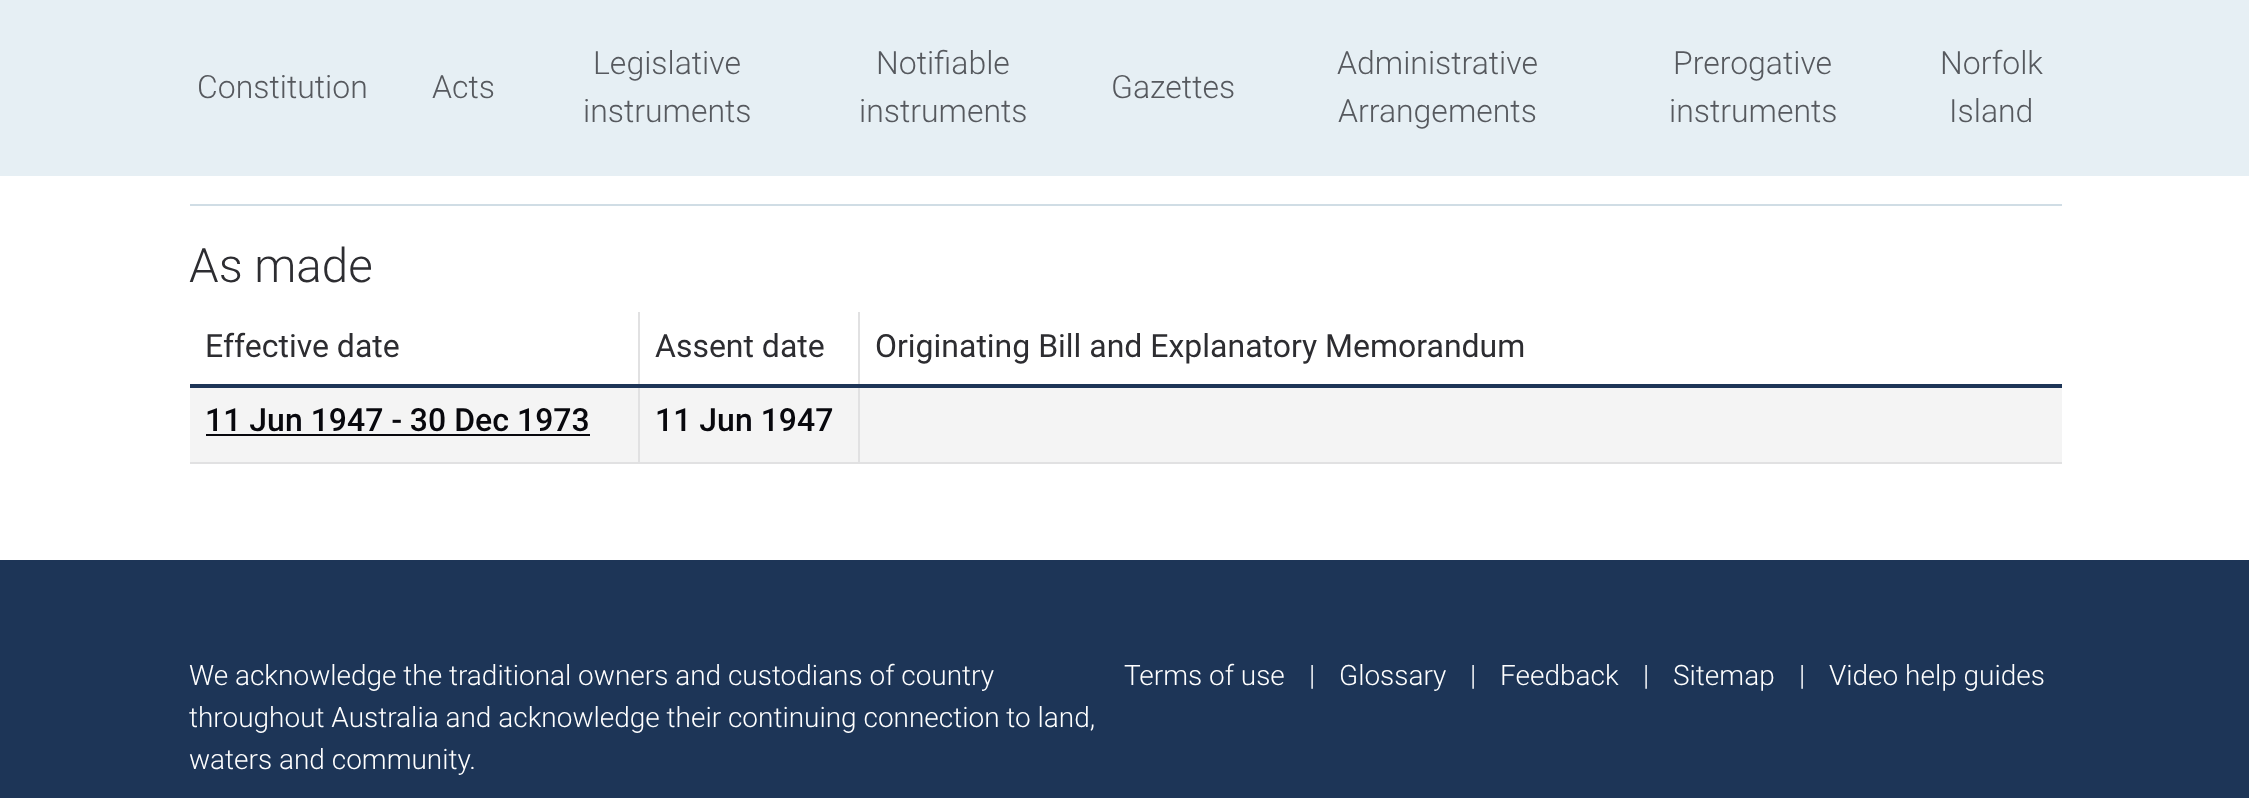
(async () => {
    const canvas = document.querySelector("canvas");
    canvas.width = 2249;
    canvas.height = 798;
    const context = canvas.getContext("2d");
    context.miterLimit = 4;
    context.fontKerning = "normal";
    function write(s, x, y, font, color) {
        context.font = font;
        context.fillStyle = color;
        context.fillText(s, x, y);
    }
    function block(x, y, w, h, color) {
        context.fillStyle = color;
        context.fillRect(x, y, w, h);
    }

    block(0, 0, 2249, 798, "rgb(255, 255, 255)");
    block(0, 0, 2249, 176, "rgb(230, 239, 244)");
    write("Constitution", 197, 98, "300 32px Roboto", "rgb(86, 89, 94)");
    write("Acts", 432, 98, "300 32px Roboto", "rgb(86, 89, 94)");
    write("Legislative", 593, 74, "300 32px Roboto", "rgb(86, 89, 94)");
    write("instruments", 583, 122, "300 32px Roboto", "rgb(86, 89, 94)");
    write("Notifiable", 876, 74, "300 32px Roboto", "rgb(86, 89, 94)");
    write("instruments", 859, 122, "300 32px Roboto", "rgb(86, 89, 94)");
    write("Gazettes", 1111, 98, "300 32px Roboto", "rgb(86, 89, 94)");
    write("Administrative", 1337, 74, "300 32px Roboto", "rgb(86, 89, 94)");
    write("Arrangements", 1338, 122, "300 32px Roboto", "rgb(86, 89, 94)");
    write("Prerogative", 1673, 74, "300 32px Roboto", "rgb(86, 89, 94)");
    write("instruments", 1669, 122, "300 32px Roboto", "rgb(86, 89, 94)");
    write("Norfolk", 1940, 74, "300 32px Roboto", "rgb(86, 89, 94)");
    write("Island", 1949, 122, "300 32px Roboto", "rgb(86, 89, 94)");
    block(190, 204, 1872, 2, "rgb(208, 221, 229)");
    write("As made", 189, 282, "300 47.5px Roboto", "rgb(45, 45, 49)");
    block(638, 312, 2, 74, "rgb(225, 225, 226)");
    block(190, 384, 450, 2, "rgb(29, 53, 87)");
    write("Effective date", 205, 357, "32px Roboto", "rgb(45, 45, 49)");
    block(858, 312, 2, 74, "rgb(225, 225, 226)");
    block(640, 384, 1422, 2, "rgb(29, 53, 87)");
    write("Assent date", 655, 357, "32px Roboto", "rgb(45, 45, 49)");
    write("Originating Bill and Explanatory Memorandum", 875, 357, "32px Roboto", "rgb(45, 45, 49)");
    block(190, 388, 1872, 74, "rgb(244, 244, 244)");
    block(190, 386, 1872, 2, "rgb(29, 53, 87)");
    block(638, 388, 2, 76, "rgb(225, 225, 226)");
    block(190, 462, 450, 2, "rgb(225, 225, 226)");
    write("11 Jun 1947 - 30 Dec 1973", 205, 431, "500 32px Roboto", "rgb(8, 8, 13)");
    block(206, 434, 384, 2, "rgb(8, 8, 13)");
    block(858, 388, 2, 76, "rgb(225, 225, 226)");
    block(640, 462, 1422, 2, "rgb(225, 225, 226)");
    write("11 Jun 1947", 655, 431, "500 32px Roboto", "rgb(8, 8, 13)");
    block(0, 560, 2249, 238, "rgb(29, 53, 87)");
    write("We acknowledge the traditional owners and custodians of country", 189, 685, "300 28px Roboto", "rgb(255, 255, 255)");
    write("throughout Australia and acknowledge their continuing connection to land,", 189, 727, "300 28px Roboto", "rgb(255, 255, 255)");
    write("waters and community.", 189, 769, "300 28px Roboto", "rgb(255, 255, 255)");
    write("Terms of use", 1124, 685, "300 28px Roboto", "rgb(255, 255, 255)");
    write("|", 1309, 685, "300 28px Roboto", "rgb(255, 255, 255)");
    write("Glossary", 1339, 685, "300 28px Roboto", "rgb(255, 255, 255)");
    write("|", 1470, 685, "300 28px Roboto", "rgb(255, 255, 255)");
    write("Feedback", 1500, 685, "300 28px Roboto", "rgb(255, 255, 255)");
    write("|", 1643, 685, "300 28px Roboto", "rgb(255, 255, 255)");
    write("Sitemap", 1673, 685, "300 28px Roboto", "rgb(255, 255, 255)");
    write("|", 1799, 685, "300 28px Roboto", "rgb(255, 255, 255)");
    write("Video help guides", 1829, 685, "300 28px Roboto", "rgb(255, 255, 255)");
})();
